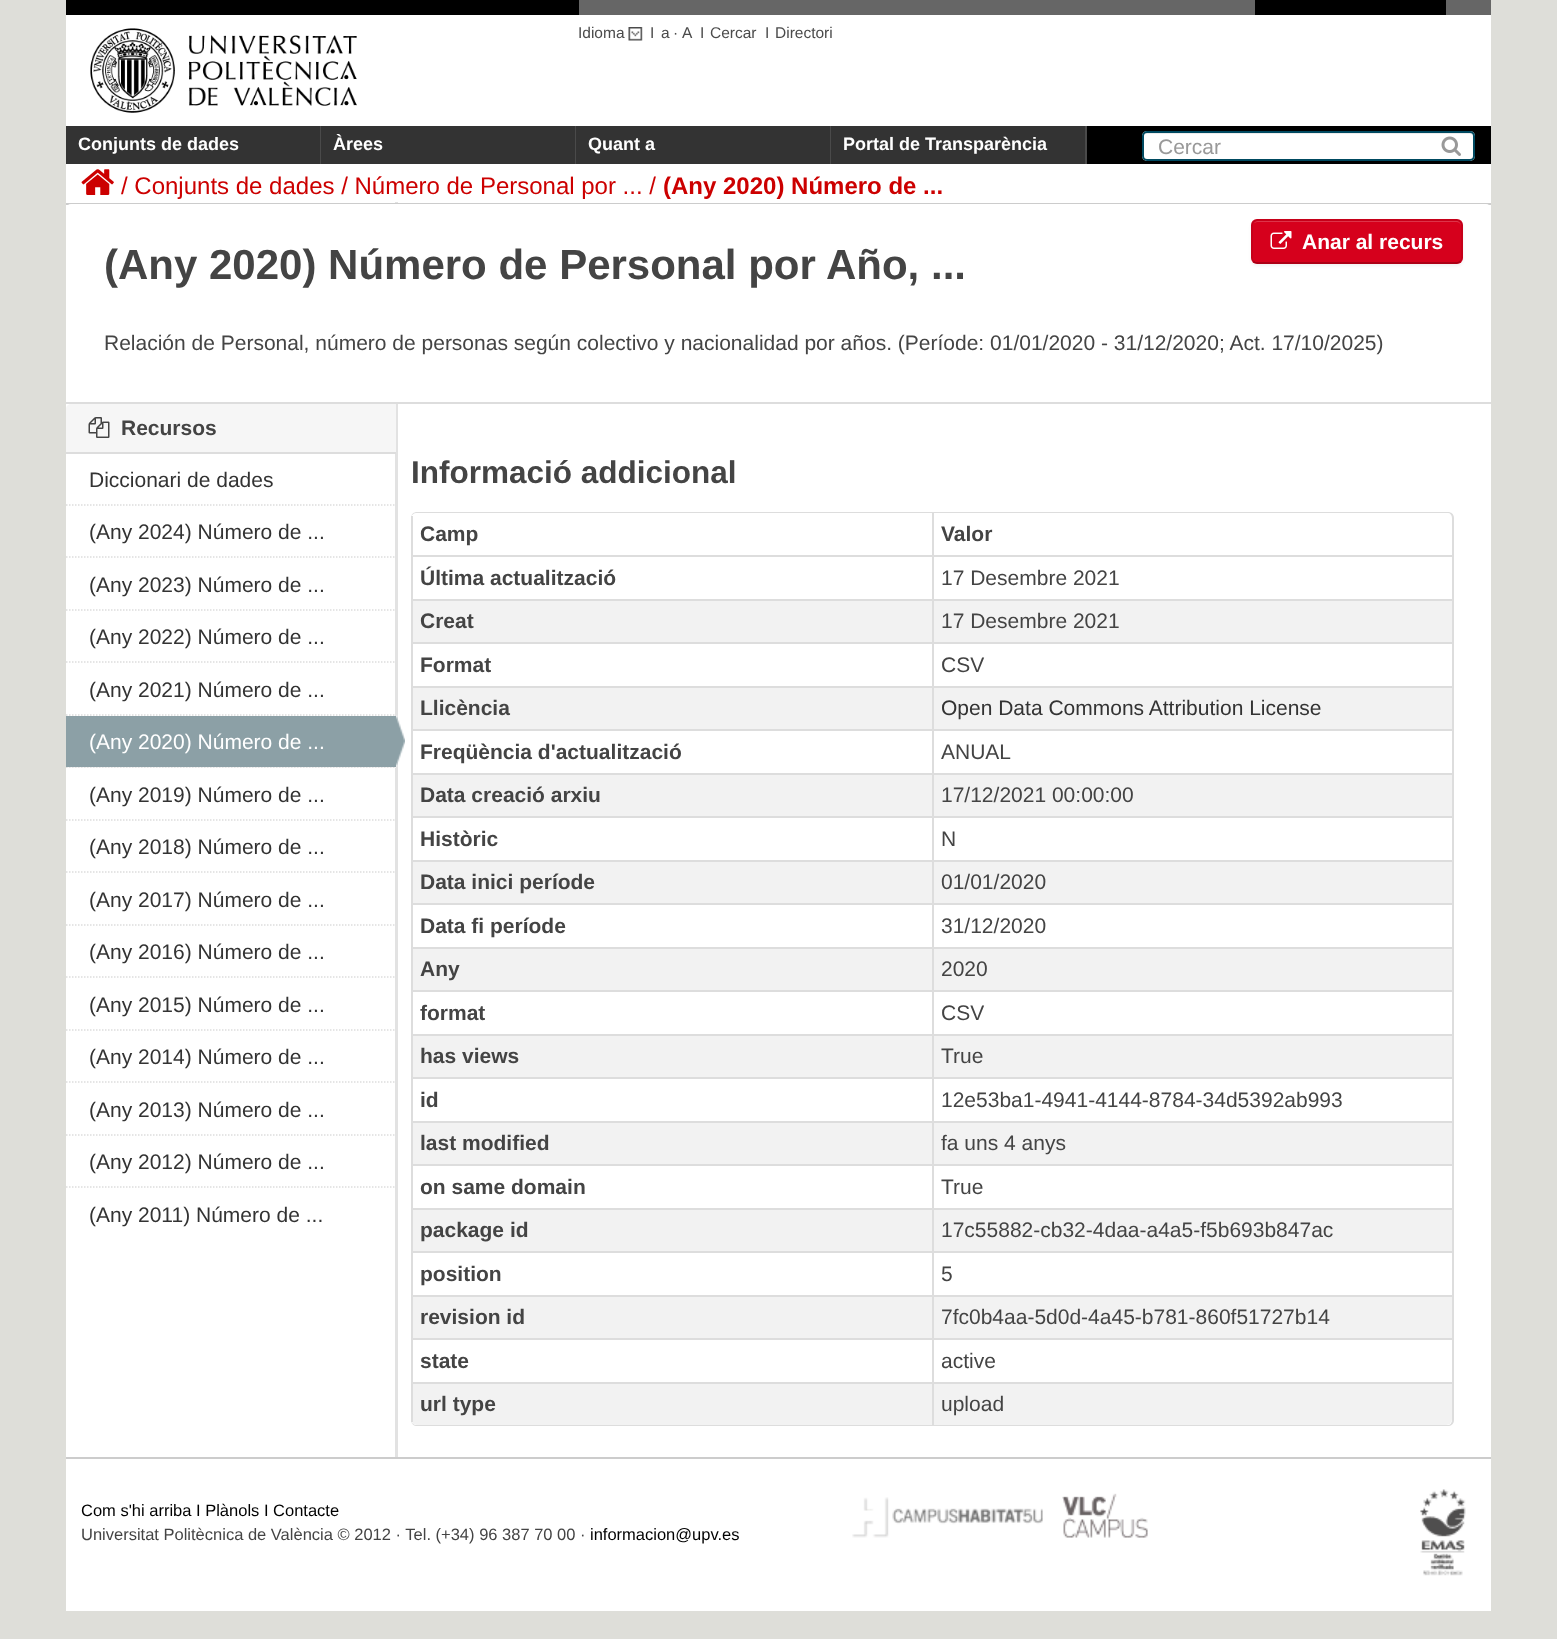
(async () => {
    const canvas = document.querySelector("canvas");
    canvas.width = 1557;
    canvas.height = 1639;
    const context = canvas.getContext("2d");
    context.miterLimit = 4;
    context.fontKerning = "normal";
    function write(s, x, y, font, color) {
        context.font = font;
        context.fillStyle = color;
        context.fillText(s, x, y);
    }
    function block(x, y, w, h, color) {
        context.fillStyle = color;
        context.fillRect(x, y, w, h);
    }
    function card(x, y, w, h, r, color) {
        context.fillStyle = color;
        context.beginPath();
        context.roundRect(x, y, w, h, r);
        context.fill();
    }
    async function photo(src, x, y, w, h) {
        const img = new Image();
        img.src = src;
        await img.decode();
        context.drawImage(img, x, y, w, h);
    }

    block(0, 0, 1557, 1639, "rgb(222, 222, 217)");
    block(579, 0, 912, 15, "rgb(102, 102, 102)");
    block(66, 0, 513, 15, "rgb(0, 0, 0)");
    block(1255, 0, 191, 15, "rgb(0, 0, 0)");
    block(66, 15, 1425, 111, "rgb(255, 255, 255)");
    await photo("media/1.png", 90, 28, 267, 85);
    write("Idioma", 578, 38, "15.5px Liberation Sans", "rgb(75, 75, 75)");
    await photo("media/2.png", 628, 27, 15, 14);
    write("I", 650, 38, "15.5px Liberation Sans", "rgb(75, 75, 75)");
    write("a", 661, 38, "15.5px Liberation Sans", "rgb(75, 75, 75)");
    write("·", 673, 38, "15.5px Liberation Sans", "rgb(75, 75, 75)");
    write("A", 682, 38, "15.5px Liberation Sans", "rgb(75, 75, 75)");
    write("I", 700, 38, "15.5px Liberation Sans", "rgb(75, 75, 75)");
    write("Cercar", 710, 38, "15.5px Liberation Sans", "rgb(75, 75, 75)");
    write("I", 765, 38, "15.5px Liberation Sans", "rgb(75, 75, 75)");
    write("Directori", 775, 38, "15.5px Liberation Sans", "rgb(75, 75, 75)");
    block(1087, 126, 404, 38, "rgb(0, 0, 0)");
    block(66, 126, 254, 38, "rgb(51, 51, 51)");
    block(320, 126, 1, 38, "rgb(74, 74, 74)");
    write("Conjunts de dades", 78, 150, "bold 18px Liberation Sans", "rgb(255, 255, 255)");
    block(321, 126, 254, 38, "rgb(51, 51, 51)");
    block(575, 126, 1, 38, "rgb(74, 74, 74)");
    write("Àrees", 333, 150, "bold 18px Liberation Sans", "rgb(255, 255, 255)");
    block(576, 126, 254, 38, "rgb(51, 51, 51)");
    block(830, 126, 1, 38, "rgb(74, 74, 74)");
    write("Quant a", 588, 150, "bold 18px Liberation Sans", "rgb(255, 255, 255)");
    block(831, 126, 254, 38, "rgb(51, 51, 51)");
    block(1085, 126, 2, 38, "rgb(74, 74, 74)");
    write("Portal de Transparència", 843, 150, "bold 18px Liberation Sans", "rgb(255, 255, 255)");
    card(1142, 131, 333, 30, 5, "rgb(255, 255, 255)");
    context.fillStyle = "rgb(236, 236, 236)";
    context.beginPath();
    context.moveTo(1146, 134);
    context.lineTo(1470, 134);
    context.bezierCurveTo(1472, 134, 1473, 135, 1473, 136);
    context.bezierCurveTo(1473, 134, 1472, 132, 1470, 132);
    context.lineTo(1146, 132);
    context.bezierCurveTo(1144, 132, 1143, 134, 1143, 136);
    context.bezierCurveTo(1143, 135, 1144, 134, 1146, 134);
    context.closePath();
    context.fill();
    context.beginPath();
    context.roundRect(1143, 132, 331, 28, 4);
    context.strokeStyle = "rgb(0, 74, 97)";
    context.lineWidth = 2;
    context.stroke();
    write("Cercar", 1158, 154, "21px Liberation Sans", "rgb(153, 153, 153)");
    await photo("media/3.png", 1441, 136, 20, 20);
    block(66, 164, 1425, 1293, "rgb(255, 255, 255)");
    await photo("media/4.png", 81, 169, 33, 26);
    write("/ Conjunts de dades / Número de Personal por ... /", 121, 194, "24px Liberation Sans", "rgb(204, 0, 0)");
    write("(Any 2020) Número de ...", 663, 194, "bold 24px Liberation Sans", "rgb(204, 0, 0)");
    block(395, 202, 3, 1256, "rgb(226, 226, 226)");
    block(66, 203, 1425, 2, "rgb(204, 204, 204)");
    block(66, 1457, 1425, 2, "rgb(204, 204, 204)");
    context.fillStyle = "rgb(255, 255, 255)";
    context.beginPath();
    context.roundRect(66, 204, 1425, 200, [5, 5, 0, 0]);
    context.fill();
    block(66, 402, 1425, 2, "rgb(221, 221, 221)");
    context.fillStyle = "rgba(0, 0, 0, 0.05)";
    context.filter = "blur(1.5px)";
    context.beginPath();
    context.roundRect(1251, 221, 212, 45, 6);
    context.fill();
    context.filter = "none";
    card(1251, 219, 212, 45, 6, "rgb(214, 0, 28)");
    context.fillStyle = "rgb(222, 51, 73)";
    context.beginPath();
    context.moveTo(1257, 222);
    context.lineTo(1456, 222);
    context.bezierCurveTo(1459, 222, 1461, 224, 1461, 226);
    context.bezierCurveTo(1461, 223, 1459, 221, 1456, 221);
    context.lineTo(1258, 221);
    context.bezierCurveTo(1256, 221, 1255, 222, 1254, 223);
    context.closePath();
    context.fill();
    context.beginPath();
    context.moveTo(1460, 261.5);
    context.bezierCurveTo(1459, 262.5, 1458, 263, 1456.5, 263);
    context.lineTo(1257, 263);
    context.bezierCurveTo(1255.5, 263, 1254.5, 262.5, 1253.5, 261.5);
    context.strokeStyle = "rgba(0, 0, 0, 0.25)";
    context.lineWidth = 1.5;
    context.stroke();
    context.beginPath();
    context.moveTo(1253.5, 261.5);
    context.bezierCurveTo(1252.5, 260.5, 1252, 259.5, 1252, 258);
    context.lineTo(1252, 225);
    context.bezierCurveTo(1252, 223.5, 1252.5, 222.5, 1253.5, 221.5);
    context.bezierCurveTo(1254.5, 220.5, 1255.5, 220, 1257, 220);
    context.lineTo(1456.5, 220);
    context.bezierCurveTo(1458, 220, 1459, 220.5, 1460, 221.5);
    context.bezierCurveTo(1461, 222.5, 1462, 223.5, 1462, 225);
    context.lineTo(1462, 258);
    context.bezierCurveTo(1462, 259.5, 1461, 260.5, 1460, 261.5);
    context.strokeStyle = "rgba(0, 0, 0, 0.1)";
    context.stroke();
    await photo("media/5.png", 1270, 231, 22, 18);
    write("Anar al recurs", 1302, 249, "bold 21px Liberation Sans", "rgb(255, 255, 255)");
    write("(Any 2020) Número de Personal por Año, ...", 104, 279, "bold 42px Liberation Sans", "rgb(68, 68, 68)");
    write("Relación de Personal, número de personas según colectivo y nacionalidad por años. (Període: 01/01/2020 - 31/12/2020; Act. 17/10/2025)", 104, 350, "21px Liberation Sans", "rgb(68, 68, 68)");
    context.fillStyle = "rgb(246, 246, 246)";
    context.beginPath();
    context.roundRect(66, 404, 330, 49, [5, 0, 0, 0]);
    context.fill();
    block(66, 452, 330, 2, "rgb(221, 221, 221)");
    await photo("media/6.png", 88, 417, 22, 21);
    write("Recursos", 121, 435, "bold 21px Liberation Sans", "rgb(68, 68, 68)");
    context.beginPath();
    context.moveTo(66, 505);
    context.lineTo(396, 505);
    context.strokeStyle = "rgb(221, 221, 221)";
    context.setLineDash([1.5, 1.5]);
    context.stroke();
    write("Diccionari de dades", 89, 487, "21px Liberation Sans", "rgb(51, 51, 51)");
    context.beginPath();
    context.moveTo(66, 557);
    context.lineTo(396, 557);
    context.stroke();
    write("(Any 2024) Número de ...", 89, 539, "21px Liberation Sans", "rgb(51, 51, 51)");
    context.beginPath();
    context.moveTo(66, 610);
    context.lineTo(396, 610);
    context.stroke();
    write("(Any 2023) Número de ...", 89, 592, "21px Liberation Sans", "rgb(51, 51, 51)");
    context.beginPath();
    context.moveTo(66, 662);
    context.lineTo(396, 662);
    context.stroke();
    write("(Any 2022) Número de ...", 89, 644, "21px Liberation Sans", "rgb(51, 51, 51)");
    context.beginPath();
    context.moveTo(66, 715);
    context.lineTo(396, 715);
    context.stroke();
    write("(Any 2021) Número de ...", 89, 697, "21px Liberation Sans", "rgb(51, 51, 51)");
    block(66, 767, 330, 1, "rgb(246, 246, 246)");
    context.beginPath();
    context.moveTo(66, 767);
    context.lineTo(396, 767);
    context.stroke();
    block(66, 716, 330, 51, "rgb(140, 160, 166)");
    write("(Any 2020) Número de ...", 89, 749, "21px Liberation Sans", "rgb(255, 255, 255)");
    await photo("media/7.png", 396, 715, 9, 52);
    context.beginPath();
    context.moveTo(66, 820);
    context.lineTo(396, 820);
    context.stroke();
    write("(Any 2019) Número de ...", 89, 802, "21px Liberation Sans", "rgb(51, 51, 51)");
    context.beginPath();
    context.moveTo(66, 872);
    context.lineTo(396, 872);
    context.stroke();
    write("(Any 2018) Número de ...", 89, 854, "21px Liberation Sans", "rgb(51, 51, 51)");
    context.beginPath();
    context.moveTo(66, 925);
    context.lineTo(396, 925);
    context.stroke();
    write("(Any 2017) Número de ...", 89, 907, "21px Liberation Sans", "rgb(51, 51, 51)");
    context.beginPath();
    context.moveTo(66, 977);
    context.lineTo(396, 977);
    context.stroke();
    write("(Any 2016) Número de ...", 89, 959, "21px Liberation Sans", "rgb(51, 51, 51)");
    context.beginPath();
    context.moveTo(66, 1030);
    context.lineTo(396, 1030);
    context.stroke();
    write("(Any 2015) Número de ...", 89, 1012, "21px Liberation Sans", "rgb(51, 51, 51)");
    context.beginPath();
    context.moveTo(66, 1082);
    context.lineTo(396, 1082);
    context.stroke();
    write("(Any 2014) Número de ...", 89, 1064, "21px Liberation Sans", "rgb(51, 51, 51)");
    context.beginPath();
    context.moveTo(66, 1135);
    context.lineTo(396, 1135);
    context.stroke();
    write("(Any 2013) Número de ...", 89, 1117, "21px Liberation Sans", "rgb(51, 51, 51)");
    context.beginPath();
    context.moveTo(66, 1187);
    context.lineTo(396, 1187);
    context.stroke();
    write("(Any 2012) Número de ...", 89, 1169, "21px Liberation Sans", "rgb(51, 51, 51)");
    write("(Any 2011) Número de ...", 89, 1222, "21px Liberation Sans", "rgb(51, 51, 51)");
    write("Informació addicional", 411, 483, "bold 31.5px Liberation Sans", "rgb(68, 68, 68)");
    context.fillStyle = "rgb(221, 221, 221)";
    context.beginPath();
    context.moveTo(417, 512);
    context.lineTo(1448, 512);
    context.bezierCurveTo(1451, 512, 1454, 514, 1454, 518);
    context.lineTo(1454, 1420);
    context.bezierCurveTo(1454, 1424, 1451, 1426, 1448, 1426);
    context.lineTo(417, 1426);
    context.bezierCurveTo(414, 1426, 411, 1424, 411, 1420);
    context.lineTo(411, 518);
    context.bezierCurveTo(411, 514, 414, 512, 417, 512);
    context.closePath();
    context.moveTo(417, 513);
    context.lineTo(1448, 513);
    context.bezierCurveTo(1450, 513, 1452, 515, 1452, 518);
    context.lineTo(1452, 1420);
    context.bezierCurveTo(1452, 1423, 1450, 1425, 1448, 1425);
    context.lineTo(417, 1425);
    context.bezierCurveTo(414, 1425, 411, 1423, 411, 1420);
    context.lineTo(411, 518);
    context.bezierCurveTo(411, 515, 414, 513, 417, 513);
    context.closePath();
    context.fill("evenodd");
    block(411, 516, 2, 39, "rgb(221, 221, 221)");
    write("Camp", 420, 541, "bold 21px Liberation Sans", "rgb(68, 68, 68)");
    block(932, 513, 2, 42, "rgb(221, 221, 221)");
    write("Valor", 941, 541, "bold 21px Liberation Sans", "rgb(68, 68, 68)");
    block(411, 555, 1041, 2, "rgb(221, 221, 221)");
    block(411, 555, 2, 44, "rgb(221, 221, 221)");
    write("Última actualització", 420, 585, "bold 21px Liberation Sans", "rgb(68, 68, 68)");
    block(932, 555, 2, 44, "rgb(221, 221, 221)");
    write("17 Desembre 2021", 941, 585, "21px Liberation Sans", "rgb(68, 68, 68)");
    block(413, 601, 519, 41, "rgb(242, 242, 242)");
    block(411, 599, 1041, 2, "rgb(221, 221, 221)");
    block(411, 599, 2, 43, "rgb(221, 221, 221)");
    write("Creat", 420, 628, "bold 21px Liberation Sans", "rgb(68, 68, 68)");
    block(934, 601, 518, 41, "rgb(242, 242, 242)");
    block(932, 599, 2, 43, "rgb(221, 221, 221)");
    write("17 Desembre 2021", 941, 628, "21px Liberation Sans", "rgb(68, 68, 68)");
    block(411, 642, 1041, 2, "rgb(221, 221, 221)");
    block(411, 642, 2, 44, "rgb(221, 221, 221)");
    write("Format", 420, 672, "bold 21px Liberation Sans", "rgb(68, 68, 68)");
    block(932, 642, 2, 44, "rgb(221, 221, 221)");
    write("CSV", 941, 672, "21px Liberation Sans", "rgb(68, 68, 68)");
    block(413, 688, 519, 41, "rgb(242, 242, 242)");
    block(411, 686, 1041, 2, "rgb(221, 221, 221)");
    block(411, 686, 2, 43, "rgb(221, 221, 221)");
    write("Llicència", 420, 715, "bold 21px Liberation Sans", "rgb(68, 68, 68)");
    block(934, 688, 518, 41, "rgb(242, 242, 242)");
    block(932, 686, 2, 43, "rgb(221, 221, 221)");
    write("Open Data Commons Attribution License", 941, 715, "21px Liberation Sans", "rgb(51, 51, 51)");
    block(411, 729, 1041, 2, "rgb(221, 221, 221)");
    block(411, 729, 2, 44, "rgb(221, 221, 221)");
    write("Freqüència d'actualització", 420, 759, "bold 21px Liberation Sans", "rgb(68, 68, 68)");
    block(932, 729, 2, 44, "rgb(221, 221, 221)");
    write("ANUAL", 941, 759, "21px Liberation Sans", "rgb(68, 68, 68)");
    block(413, 775, 519, 41, "rgb(242, 242, 242)");
    block(411, 773, 1041, 2, "rgb(221, 221, 221)");
    block(411, 773, 2, 43, "rgb(221, 221, 221)");
    write("Data creació arxiu", 420, 802, "bold 21px Liberation Sans", "rgb(68, 68, 68)");
    block(934, 775, 518, 41, "rgb(242, 242, 242)");
    block(932, 773, 2, 43, "rgb(221, 221, 221)");
    write("17/12/2021 00:00:00", 941, 802, "21px Liberation Sans", "rgb(68, 68, 68)");
    block(411, 816, 1041, 2, "rgb(221, 221, 221)");
    block(411, 816, 2, 44, "rgb(221, 221, 221)");
    write("Històric", 420, 846, "bold 21px Liberation Sans", "rgb(68, 68, 68)");
    block(932, 816, 2, 44, "rgb(221, 221, 221)");
    write("N", 941, 846, "21px Liberation Sans", "rgb(68, 68, 68)");
    block(413, 862, 519, 41, "rgb(242, 242, 242)");
    block(411, 860, 1041, 2, "rgb(221, 221, 221)");
    block(411, 860, 2, 43, "rgb(221, 221, 221)");
    write("Data inici període", 420, 889, "bold 21px Liberation Sans", "rgb(68, 68, 68)");
    block(934, 862, 518, 41, "rgb(242, 242, 242)");
    block(932, 860, 2, 43, "rgb(221, 221, 221)");
    write("01/01/2020", 941, 889, "21px Liberation Sans", "rgb(68, 68, 68)");
    block(411, 903, 1041, 2, "rgb(221, 221, 221)");
    block(411, 903, 2, 44, "rgb(221, 221, 221)");
    write("Data fi període", 420, 933, "bold 21px Liberation Sans", "rgb(68, 68, 68)");
    block(932, 903, 2, 44, "rgb(221, 221, 221)");
    write("31/12/2020", 941, 933, "21px Liberation Sans", "rgb(68, 68, 68)");
    block(413, 949, 519, 41, "rgb(242, 242, 242)");
    block(411, 947, 1041, 2, "rgb(221, 221, 221)");
    block(411, 947, 2, 43, "rgb(221, 221, 221)");
    write("Any", 420, 976, "bold 21px Liberation Sans", "rgb(68, 68, 68)");
    block(934, 949, 518, 41, "rgb(242, 242, 242)");
    block(932, 947, 2, 43, "rgb(221, 221, 221)");
    write("2020", 941, 976, "21px Liberation Sans", "rgb(68, 68, 68)");
    block(411, 990, 1041, 2, "rgb(221, 221, 221)");
    block(411, 990, 2, 44, "rgb(221, 221, 221)");
    write("format", 420, 1020, "bold 21px Liberation Sans", "rgb(68, 68, 68)");
    block(932, 990, 2, 44, "rgb(221, 221, 221)");
    write("CSV", 941, 1020, "21px Liberation Sans", "rgb(68, 68, 68)");
    block(413, 1036, 519, 41, "rgb(242, 242, 242)");
    block(411, 1034, 1041, 2, "rgb(221, 221, 221)");
    block(411, 1034, 2, 43, "rgb(221, 221, 221)");
    write("has views", 420, 1063, "bold 21px Liberation Sans", "rgb(68, 68, 68)");
    block(934, 1036, 518, 41, "rgb(242, 242, 242)");
    block(932, 1034, 2, 43, "rgb(221, 221, 221)");
    write("True", 941, 1063, "21px Liberation Sans", "rgb(68, 68, 68)");
    block(411, 1077, 1041, 2, "rgb(221, 221, 221)");
    block(411, 1077, 2, 44, "rgb(221, 221, 221)");
    write("id", 420, 1107, "bold 21px Liberation Sans", "rgb(68, 68, 68)");
    block(932, 1077, 2, 44, "rgb(221, 221, 221)");
    write("12e53ba1-4941-4144-8784-34d5392ab993", 941, 1107, "21px Liberation Sans", "rgb(68, 68, 68)");
    block(413, 1123, 519, 41, "rgb(242, 242, 242)");
    block(411, 1121, 1041, 2, "rgb(221, 221, 221)");
    block(411, 1121, 2, 43, "rgb(221, 221, 221)");
    write("last modified", 420, 1150, "bold 21px Liberation Sans", "rgb(68, 68, 68)");
    block(934, 1123, 518, 41, "rgb(242, 242, 242)");
    block(932, 1121, 2, 43, "rgb(221, 221, 221)");
    write("fa uns 4 anys", 941, 1150, "21px Liberation Sans", "rgb(68, 68, 68)");
    block(411, 1164, 1041, 2, "rgb(221, 221, 221)");
    block(411, 1164, 2, 44, "rgb(221, 221, 221)");
    write("on same domain", 420, 1194, "bold 21px Liberation Sans", "rgb(68, 68, 68)");
    block(932, 1164, 2, 44, "rgb(221, 221, 221)");
    write("True", 941, 1194, "21px Liberation Sans", "rgb(68, 68, 68)");
    block(413, 1210, 519, 41, "rgb(242, 242, 242)");
    block(411, 1208, 1041, 2, "rgb(221, 221, 221)");
    block(411, 1208, 2, 43, "rgb(221, 221, 221)");
    write("package id", 420, 1237, "bold 21px Liberation Sans", "rgb(68, 68, 68)");
    block(934, 1210, 518, 41, "rgb(242, 242, 242)");
    block(932, 1208, 2, 43, "rgb(221, 221, 221)");
    write("17c55882-cb32-4daa-a4a5-f5b693b847ac", 941, 1237, "21px Liberation Sans", "rgb(68, 68, 68)");
    block(411, 1251, 1041, 2, "rgb(221, 221, 221)");
    block(411, 1251, 2, 44, "rgb(221, 221, 221)");
    write("position", 420, 1281, "bold 21px Liberation Sans", "rgb(68, 68, 68)");
    block(932, 1251, 2, 44, "rgb(221, 221, 221)");
    write("5", 941, 1281, "21px Liberation Sans", "rgb(68, 68, 68)");
    block(413, 1297, 519, 41, "rgb(242, 242, 242)");
    block(411, 1295, 1041, 2, "rgb(221, 221, 221)");
    block(411, 1295, 2, 43, "rgb(221, 221, 221)");
    write("revision id", 420, 1324, "bold 21px Liberation Sans", "rgb(68, 68, 68)");
    block(934, 1297, 518, 41, "rgb(242, 242, 242)");
    block(932, 1295, 2, 43, "rgb(221, 221, 221)");
    write("7fc0b4aa-5d0d-4a45-b781-860f51727b14", 941, 1324, "21px Liberation Sans", "rgb(68, 68, 68)");
    block(411, 1338, 1041, 2, "rgb(221, 221, 221)");
    block(411, 1338, 2, 44, "rgb(221, 221, 221)");
    write("state", 420, 1368, "bold 21px Liberation Sans", "rgb(68, 68, 68)");
    block(932, 1338, 2, 44, "rgb(221, 221, 221)");
    write("active", 941, 1368, "21px Liberation Sans", "rgb(68, 68, 68)");
    context.fillStyle = "rgb(242, 242, 242)";
    context.beginPath();
    context.roundRect(411, 1382, 521, 43, [0, 0, 0, 6]);
    context.fill();
    block(411, 1382, 521, 2, "rgb(221, 221, 221)");
    block(411, 1382, 2, 40, "rgb(221, 221, 221)");
    write("url type", 420, 1411, "bold 21px Liberation Sans", "rgb(68, 68, 68)");
    context.fillStyle = "rgb(242, 242, 242)";
    context.beginPath();
    context.roundRect(932, 1382, 520, 43, [0, 0, 6, 0]);
    context.fill();
    block(932, 1382, 520, 2, "rgb(221, 221, 221)");
    block(932, 1382, 2, 43, "rgb(221, 221, 221)");
    write("upload", 941, 1411, "21px Liberation Sans", "rgb(68, 68, 68)");
    block(66, 1459, 1425, 152, "rgb(255, 255, 255)");
    write("Com s'hi arriba I Plànols I Contacte", 81, 1516, "16.5px Liberation Sans", "rgb(0, 0, 0)");
    write("Universitat Politècnica de València © 2012 · Tel. (+34) 96 387 70 00 ·", 81, 1540, "16.5px Liberation Sans", "rgb(68, 68, 68)");
    write("informacion@upv.es", 590, 1540, "16.5px Liberation Sans", "rgb(0, 0, 0)");
    await photo("media/8.png", 852, 1497, 191, 41);
    await photo("media/9.png", 1062, 1493, 86, 45);
    await photo("media/10.png", 1420, 1489, 46, 87);
})();
